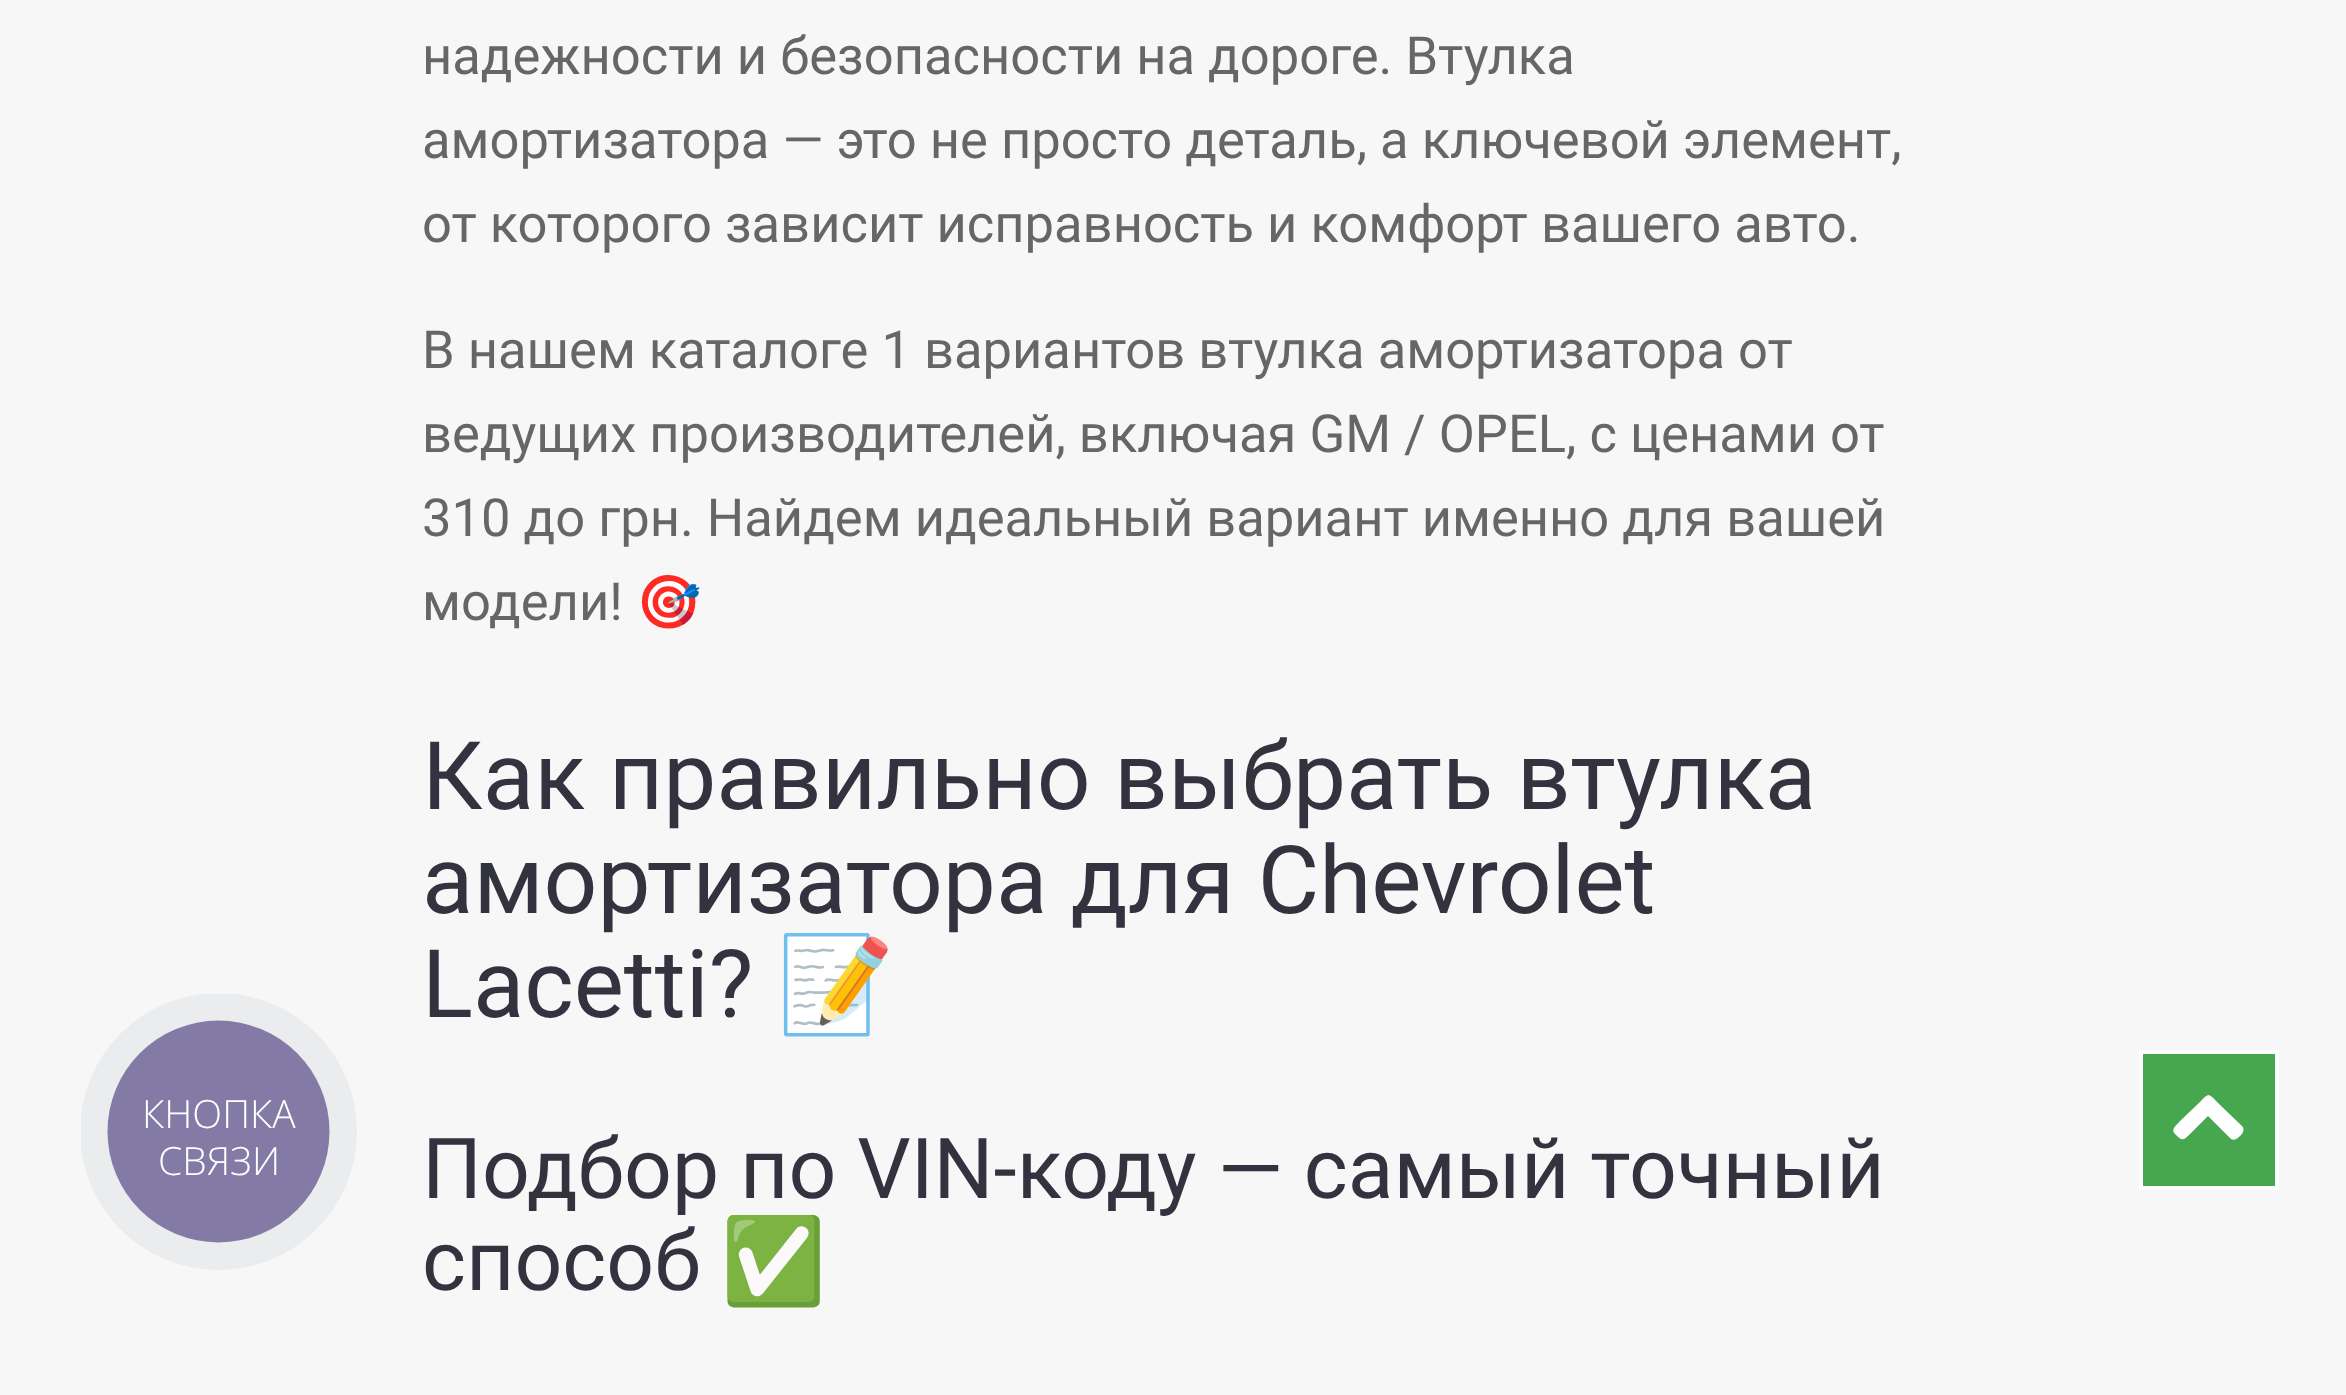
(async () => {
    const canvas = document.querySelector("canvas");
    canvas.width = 2346;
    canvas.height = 1395;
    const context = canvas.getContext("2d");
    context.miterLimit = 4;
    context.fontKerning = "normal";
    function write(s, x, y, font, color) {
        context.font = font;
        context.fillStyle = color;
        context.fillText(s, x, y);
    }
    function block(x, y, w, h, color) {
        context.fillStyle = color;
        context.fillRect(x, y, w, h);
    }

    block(0, 0, 2346, 1395, "rgb(247, 247, 247)");
    context.save();
    context.beginPath();
    context.rect(81, 994, 276, 277);
    context.clip();
    context.fillStyle = "rgb(235, 236, 238)";
    context.beginPath();
    context.arc(218.5, 1131.5, 138.5, 0, Math.PI * 2);
    context.fill();
    context.restore();
    context.fillStyle = "rgb(131, 123, 166)";
    context.beginPath();
    context.arc(218.5, 1131.5, 111, 0, Math.PI * 2);
    context.fill();
    write("КНОПКА", 142, 1128, "300 39px Open Sans", "rgb(255, 255, 255)");
    write("СВЯЗИ", 158, 1175, "300 39px Open Sans", "rgb(255, 255, 255)");
    write("надежности и безопасности на дороге. Втулка", 422, 74, "52.5px Roboto", "rgb(102, 102, 102)");
    write("амортизатора — это не просто деталь, а ключевой элемент,", 422, 158, "52.5px Roboto", "rgb(102, 102, 102)");
    write("от которого зависит исправность и комфорт вашего авто.", 422, 242, "52.5px Roboto", "rgb(102, 102, 102)");
    write("В нашем каталоге 1 вариантов втулка амортизатора от", 422, 368, "52.5px Roboto", "rgb(102, 102, 102)");
    write("ведущих производителей, включая GM / OPEL, с ценами от", 422, 452, "52.5px Roboto", "rgb(102, 102, 102)");
    write("310 до грн. Найдем идеальный вариант именно для вашей", 422, 536, "52.5px Roboto", "rgb(102, 102, 102)");
    write("модели!", 422, 620, "52.5px Roboto", "rgb(102, 102, 102)");
    write("🎯", 636, 620, "52.5px Noto Color Emoji", "rgb(102, 102, 102)");
    write("Как правильно выбрать втулка", 422, 809, "94.5px Roboto", "rgb(51, 51, 63)");
    write("амортизатора для Chevrolet", 422, 913, "94.5px Roboto", "rgb(51, 51, 63)");
    write("Lacetti?", 422, 1017, "94.5px Roboto", "rgb(51, 51, 63)");
    write("📝", 777, 1017, "94.5px Noto Color Emoji", "rgb(51, 51, 63)");
    write("Подбор по VIN-коду — самый точный", 422, 1198, "84px Roboto", "rgb(51, 51, 63)");
    write("способ", 422, 1290, "84px Roboto", "rgb(51, 51, 63)");
    write("✅", 721, 1290, "84px Noto Color Emoji", "rgb(51, 51, 63)");
    context.fillStyle = "rgb(70, 167, 78)";
    context.beginPath();
    context.rect(2141, 1052, 136, 136);
    context.fill();
    context.strokeStyle = "rgb(255, 255, 255)";
    context.lineWidth = 4;
    context.stroke();
    context.fillStyle = "rgb(255, 255, 255)";
    context.beginPath();
    context.moveTo(2242, 1126);
    context.lineTo(2217, 1102);
    context.bezierCurveTo(2209, 1093, 2208, 1093, 2200, 1102);
    context.lineTo(2180, 1121);
    context.bezierCurveTo(2177, 1125, 2170, 1129, 2175, 1134);
    context.bezierCurveTo(2182, 1141, 2183, 1141, 2190, 1134);
    context.lineTo(2208, 1116);
    context.lineTo(2231, 1139);
    context.bezierCurveTo(2235, 1141, 2238, 1138, 2241, 1135);
    context.bezierCurveTo(2243, 1133, 2245, 1129, 2242, 1126);
    context.closePath();
    context.fill();
})();
